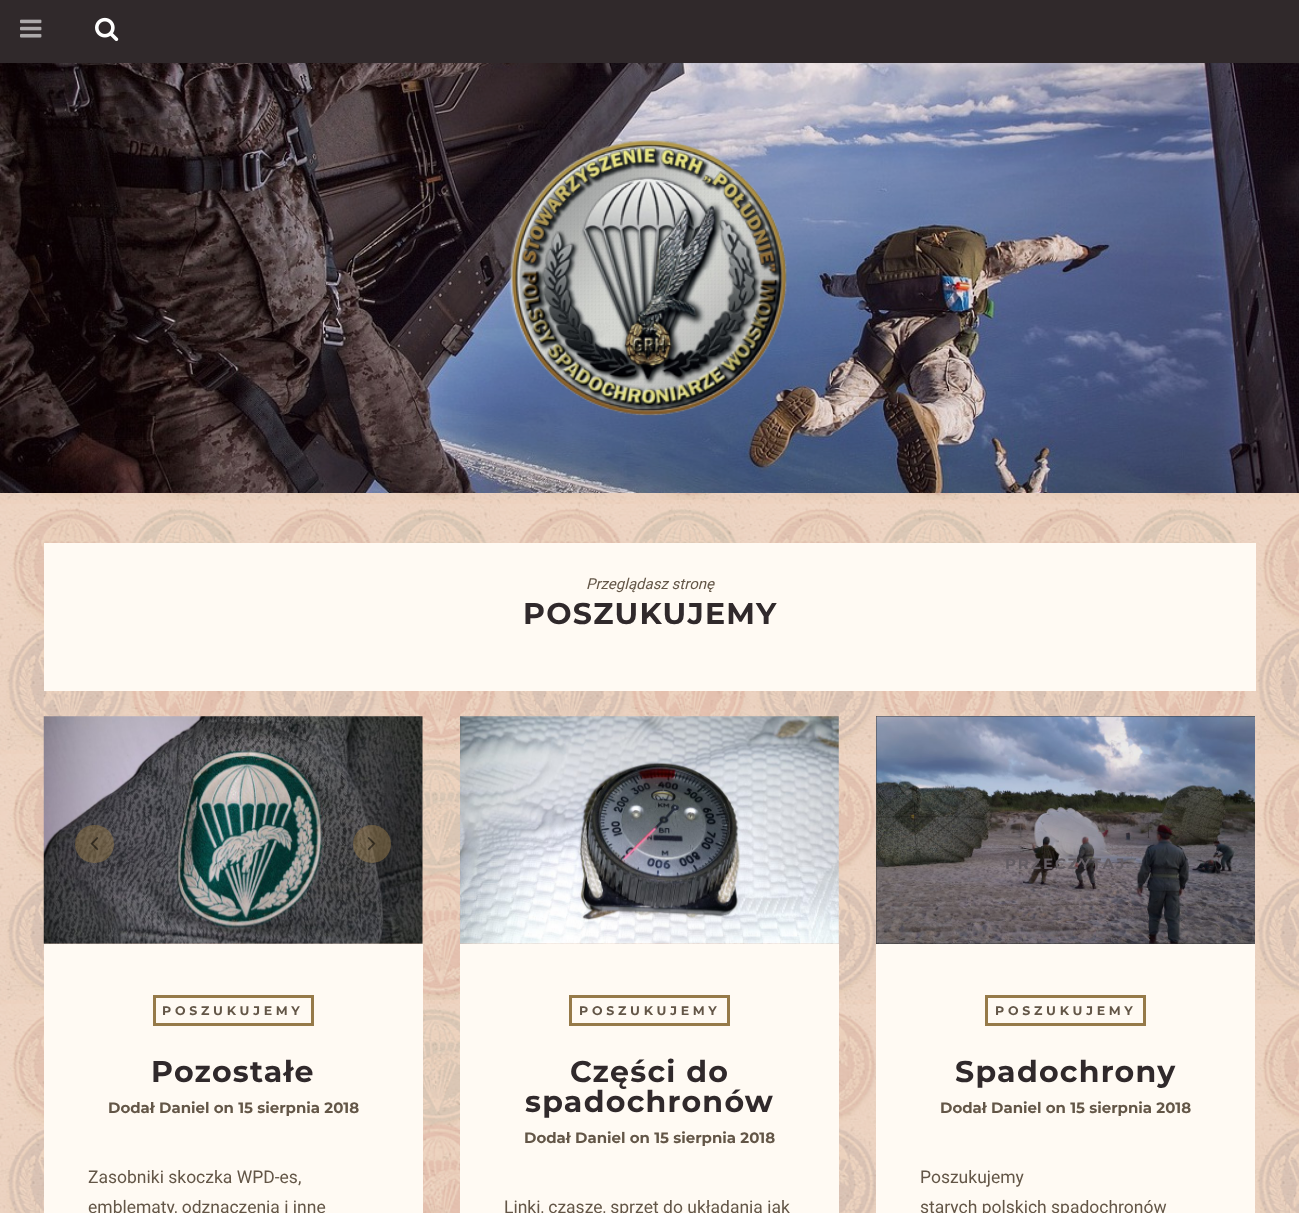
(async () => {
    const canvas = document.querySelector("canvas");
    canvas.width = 1299;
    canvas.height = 1213;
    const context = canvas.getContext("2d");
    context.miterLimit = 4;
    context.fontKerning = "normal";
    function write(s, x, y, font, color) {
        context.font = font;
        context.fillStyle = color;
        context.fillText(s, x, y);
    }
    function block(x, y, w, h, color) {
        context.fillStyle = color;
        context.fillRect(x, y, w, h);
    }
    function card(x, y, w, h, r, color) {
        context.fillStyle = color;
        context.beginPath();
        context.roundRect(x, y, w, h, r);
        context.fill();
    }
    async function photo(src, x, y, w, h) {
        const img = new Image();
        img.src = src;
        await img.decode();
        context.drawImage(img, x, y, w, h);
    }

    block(0, 0, 1299, 1213, "rgb(255, 255, 255)");
    await photo("media/1.png", 0, 493, 1299, 720);
    block(0, 0, 1299, 63, "rgb(48, 41, 43)");
    await photo("media/2.png", 20, 19, 22, 19);
    await photo("media/3.png", 95, 17, 24, 25);
    await photo("media/4.png", 0, 63, 1299, 430);
    await photo("media/5.png", 509, 140, 278, 276);
    block(44, 543, 1212, 148, "rgb(255, 250, 243)");
    write("Przeglądasz stronę", 586, 589, "italic 15px Roboto", "rgb(99, 86, 71)");
    context.letterSpacing = "1.25px";
    write("POSZUKUJEMY", 523, 624, "100 30px Montserrat", "rgb(48, 41, 43)");
    await photo("media/6.png", 43, 716, 380, 228);
    card(75, 825, 39, 38, 19, "rgba(150, 122, 73, 0.5)");
    await photo("media/7.png", 90, 837, 9, 14);
    context.beginPath();
    context.arc(372, 844, 19, 0, Math.PI * 2);
    context.fill();
    await photo("media/8.png", 367, 837, 9, 14);
    block(44, 944, 379, 269, "rgb(255, 250, 243)");
    context.strokeStyle = "rgb(150, 122, 73)";
    context.lineWidth = 3;
    context.strokeRect(154.5, 996.5, 158, 28);
    context.letterSpacing = "3.75px";
    write("POSZUKUJEMY", 162, 1015, "100 12.5px Montserrat", "rgb(99, 86, 71)");
    context.letterSpacing = "1.25px";
    write("Pozostałe", 151, 1082, "100 30px Montserrat", "rgb(48, 41, 43)");
    context.letterSpacing = "0px";
    write("Dodał Daniel on 15 sierpnia 2018", 108, 1113, "100 15px Montserrat", "rgb(99, 86, 71)");
    write("Zasobniki skoczka WPD-es,", 88, 1183, "17.5px Roboto", "rgb(99, 86, 71)");
    write("emblematy, odznaczenia i inne", 88, 1213, "17.5px Roboto", "rgb(99, 86, 71)");
    await photo("media/9.png", 460, 716, 379, 228);
    block(460, 944, 379, 269, "rgb(255, 250, 243)");
    context.strokeRect(570.5, 996.5, 158, 28);
    context.letterSpacing = "3.75px";
    write("POSZUKUJEMY", 579, 1015, "100 12.5px Montserrat", "rgb(99, 86, 71)");
    context.letterSpacing = "1.25px";
    write("Części do", 570, 1082, "100 30px Montserrat", "rgb(48, 41, 43)");
    write("spadochronów", 525, 1112, "100 30px Montserrat", "rgb(48, 41, 43)");
    context.letterSpacing = "0px";
    write("Dodał Daniel on 15 sierpnia 2018", 524, 1143, "100 15px Montserrat", "rgb(99, 86, 71)");
    write("Linki, czasze, sprzęt do układania jak", 504, 1213, "17.5px Roboto", "rgb(99, 86, 71)");
    block(876, 716, 379, 228, "rgb(51, 51, 51)");
    await photo("media/10.png", 876, 716, 379, 228);
    context.letterSpacing = "2px";
    write("PRZECZYTAJ", 1005, 869, "100 15px Montserrat", "rgb(98, 92, 98)");
    block(876, 944, 379, 269, "rgb(255, 250, 243)");
    context.strokeRect(986.5, 996.5, 158, 28);
    context.letterSpacing = "3.75px";
    write("POSZUKUJEMY", 995, 1015, "100 12.5px Montserrat", "rgb(99, 86, 71)");
    context.letterSpacing = "1.25px";
    write("Spadochrony", 955, 1082, "100 30px Montserrat", "rgb(48, 41, 43)");
    context.letterSpacing = "0px";
    write("Dodał Daniel on 15 sierpnia 2018", 940, 1113, "100 15px Montserrat", "rgb(99, 86, 71)");
    write("Poszukujemy", 920, 1183, "17.5px Roboto", "rgb(99, 86, 71)");
    write("starych polskich spadochronów", 920, 1213, "17.5px Roboto", "rgb(99, 86, 71)");
})();
